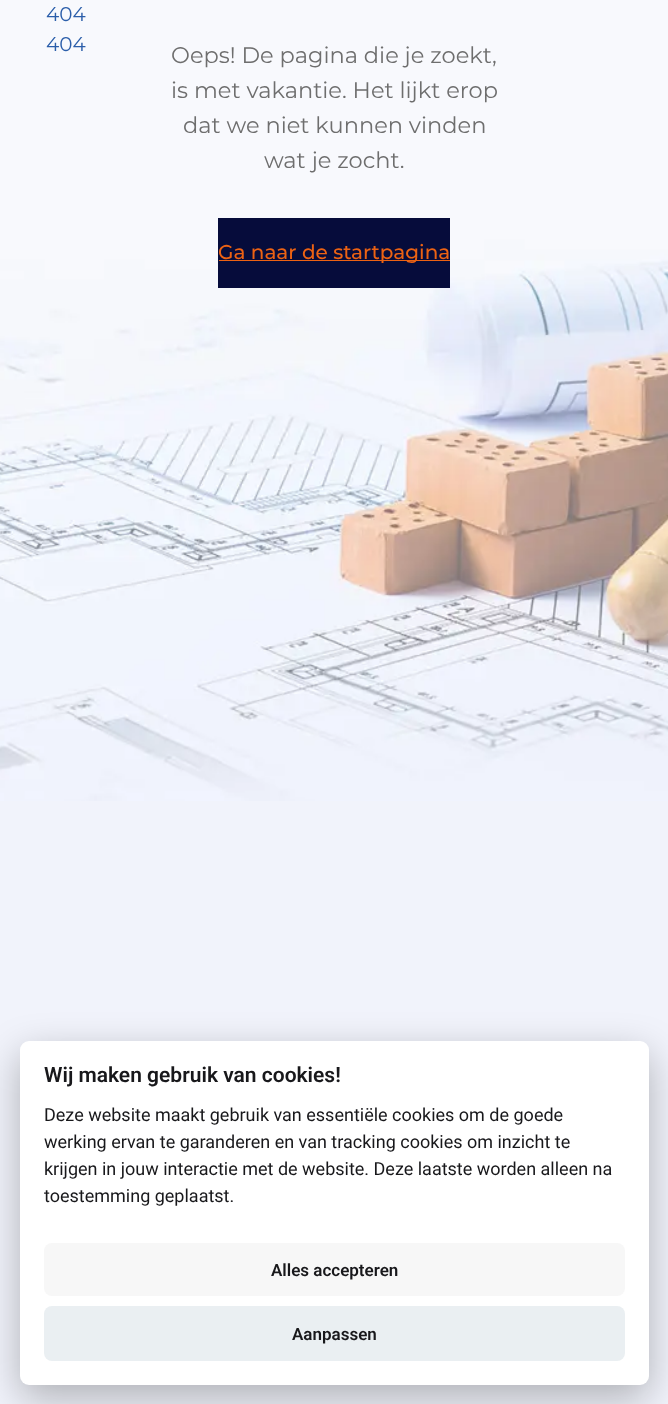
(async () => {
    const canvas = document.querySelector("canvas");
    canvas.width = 668;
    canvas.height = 1404;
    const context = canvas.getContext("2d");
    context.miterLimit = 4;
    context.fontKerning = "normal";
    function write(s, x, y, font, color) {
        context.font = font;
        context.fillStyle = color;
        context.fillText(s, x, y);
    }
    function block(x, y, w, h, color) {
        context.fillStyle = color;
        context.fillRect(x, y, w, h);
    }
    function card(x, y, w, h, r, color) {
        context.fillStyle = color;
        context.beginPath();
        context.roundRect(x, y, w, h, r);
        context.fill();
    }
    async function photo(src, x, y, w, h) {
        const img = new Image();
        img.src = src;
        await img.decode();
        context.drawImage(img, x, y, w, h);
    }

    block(0, 0, 668, 1404, "rgb(241, 243, 251)");
    await photo("media/1.png", 0, 0, 668, 801);
    write("404", 46, 21, "20px Montserrat", "rgb(43, 94, 170)");
    write("404", 46, 51, "20px Montserrat", "rgb(43, 94, 170)");
    write("Oeps! De pagina die je zoekt,", 171, 63, "22.5px Montserrat", "rgb(110, 110, 110)");
    write("is met vakantie. Het lijkt erop", 171, 98, "22.5px Montserrat", "rgb(110, 110, 110)");
    write("dat we niet kunnen vinden", 183, 133, "22.5px Montserrat", "rgb(110, 110, 110)");
    write("wat je zocht.", 264, 168, "22.5px Montserrat", "rgb(110, 110, 110)");
    block(218, 218, 232, 70, "rgb(6, 12, 59)");
    block(219, 260, 231, 1, "rgb(236, 98, 19)");
    write("Ga naar de startpagina", 218, 259, "500 20px Montserrat", "rgb(236, 98, 19)");
    context.fillStyle = "rgba(2, 2, 3, 0.28)";
    context.filter = "blur(19px)";
    context.beginPath();
    context.roundRect(20, 1054, 629, 344, 9);
    context.fill();
    context.filter = "none";
    card(20, 1041, 629, 344, 9, "rgb(255, 255, 255)");
    write("Wij maken gebruik van cookies!", 44, 1082, "600 21px Roboto", "rgb(24, 24, 27)");
    write("Deze website maakt gebruik van essentiële cookies om de goede", 44, 1121, "18px Roboto", "rgb(24, 24, 27)");
    write("werking ervan te garanderen en van tracking cookies om inzicht te", 44, 1148, "18px Roboto", "rgb(24, 24, 27)");
    write("krijgen in jouw interactie met de website. Deze laatste worden alleen na", 44, 1175, "18px Roboto", "rgb(24, 24, 27)");
    write("toestemming geplaatst.", 44, 1202, "18px Roboto", "rgb(24, 24, 27)");
    card(44, 1243, 581, 53, 8, "rgb(247, 247, 247)");
    write("Alles accepteren", 271, 1276, "600 17px Roboto", "rgb(24, 24, 27)");
    card(44, 1306, 581, 55, 8, "rgb(234, 239, 242)");
    write("Aanpassen", 292, 1340, "600 17px Roboto", "rgb(24, 24, 27)");
})();
